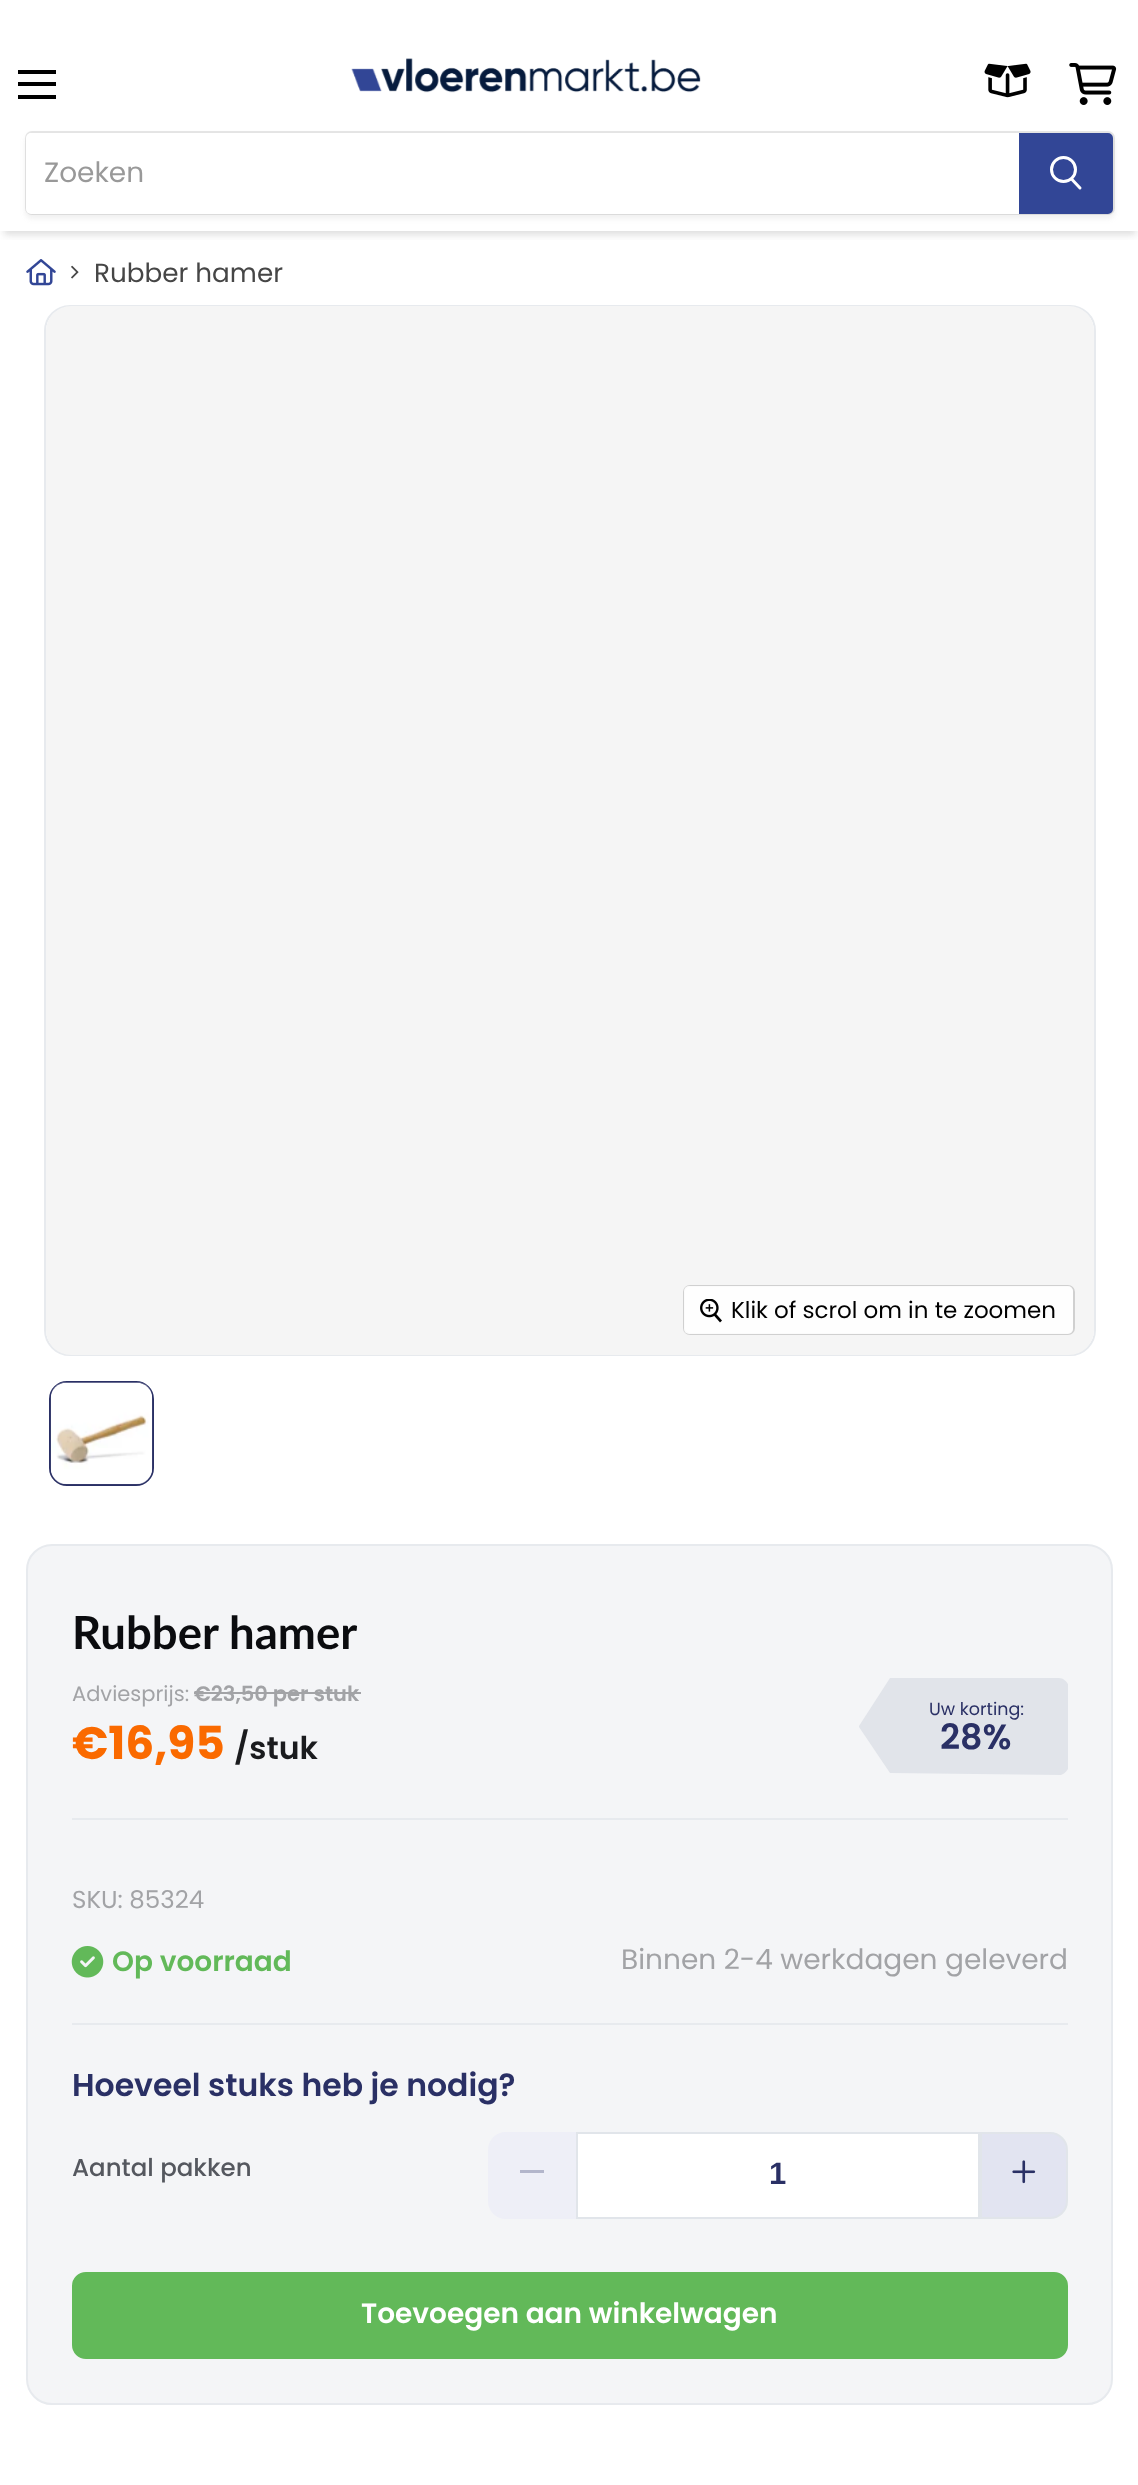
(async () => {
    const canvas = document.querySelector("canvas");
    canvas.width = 1138;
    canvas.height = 2485;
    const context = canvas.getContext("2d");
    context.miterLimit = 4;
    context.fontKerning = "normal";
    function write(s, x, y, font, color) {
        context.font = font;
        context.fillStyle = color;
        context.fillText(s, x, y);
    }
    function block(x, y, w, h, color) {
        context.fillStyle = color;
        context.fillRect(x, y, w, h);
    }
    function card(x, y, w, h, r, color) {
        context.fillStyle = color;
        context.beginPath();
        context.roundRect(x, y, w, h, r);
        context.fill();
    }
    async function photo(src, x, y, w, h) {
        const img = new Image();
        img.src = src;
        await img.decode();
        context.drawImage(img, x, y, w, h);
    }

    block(0, 0, 1138, 2485, "rgb(255, 255, 255)");
    context.save();
    context.beginPath();
    context.rect(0, 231, 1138, 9);
    context.clip();
    context.fillStyle = "rgba(128, 128, 128, 0.25)";
    context.filter = "blur(3.5px)";
    context.beginPath();
    context.rect(4, 28, 1132, 207);
    context.fill();
    context.filter = "none";
    context.restore();
    block(18, 70, 38, 4, "rgb(0, 0, 0)");
    block(18, 82, 38, 4, "rgb(0, 0, 0)");
    block(18, 95, 38, 4, "rgb(0, 0, 0)");
    await photo("media/1.png", 984, 63, 47, 35);
    await photo("media/2.png", 1069, 63, 48, 42);
    await photo("media/3.png", 351, 58, 350, 35);
    context.fillStyle = "rgba(128, 128, 128, 0.11)";
    context.filter = "blur(2.5px)";
    context.beginPath();
    context.roundRect(25, 135, 1090, 84, 7);
    context.fill();
    context.filter = "none";
    context.beginPath();
    context.roundRect(26, 132, 1088, 82, 6);
    context.strokeStyle = "rgba(128, 128, 128, 0.2)";
    context.lineWidth = 2;
    context.stroke();
    context.fillStyle = "rgb(255, 255, 255)";
    context.beginPath();
    context.roundRect(26, 133, 993, 81, [5, 0, 0, 5]);
    context.fill();
    write("Zoeken", 44, 182, "28px Poppins", "rgb(153, 153, 153)");
    context.fillStyle = "rgb(50, 70, 150)";
    context.beginPath();
    context.roundRect(1020, 134, 92, 79, [0, 4, 4, 0]);
    context.fill();
    context.strokeStyle = "rgb(50, 70, 150)";
    context.stroke();
    context.beginPath();
    context.moveTo(1080, 188);
    context.lineTo(1072, 179.5);
    context.strokeStyle = "rgb(255, 255, 255)";
    context.lineWidth = 3;
    context.lineCap = "round";
    context.stroke();
    context.beginPath();
    context.arc(1063.5, 169.5, 12, 0, Math.PI * 2);
    context.stroke();
    await photo("media/4.png", 26, 259, 30, 27);
    await photo("media/5.png", 71, 265, 8, 14);
    write("Rubber hamer", 94, 282, "26.25px Poppins", "rgb(70, 70, 70)");
    context.beginPath();
    context.roundRect(45, 306, 1050, 1049, 25);
    context.strokeStyle = "rgb(231, 234, 238)";
    context.lineWidth = 2;
    context.stroke();
    card(46, 306, 1048, 1049, 25, "rgb(245, 245, 245)");
    context.beginPath();
    context.roundRect(684, 1286, 390, 48, 6);
    context.strokeStyle = "rgb(208, 208, 208)";
    context.stroke();
    card(684, 1286, 389, 48, 5, "rgba(255, 255, 255, 0.9)");
    await photo("media/6.png", 700, 1299, 22, 24);
    write("Klik of scrol om in te zoomen", 731, 1318, "23px Poppins", "rgb(0, 0, 0)");
    context.beginPath();
    context.roundRect(50, 1382, 103, 103, 17);
    context.strokeStyle = "rgb(42, 48, 101)";
    context.stroke();
    await photo("media/7.png", 50, 1382, 103, 103);
    context.fillStyle = "rgb(244, 245, 247)";
    context.beginPath();
    context.roundRect(27, 1545, 1085, 859, 25);
    context.fill();
    context.strokeStyle = "rgb(231, 234, 238)";
    context.stroke();
    write("Rubber hamer", 72, 1649, "bold 45.5px Lato", "rgb(11, 12, 15)");
    write("Adviesprijs:", 72, 1701, "21px Poppins", "rgb(162, 163, 166)");
    write("€23,50 per stuk", 194, 1701, "600 21px Poppins", "rgb(162, 163, 166)");
    block(194, 1692, 167, 2, "rgb(162, 163, 166)");
    write("€16,95", 72, 1759, "bold 45.5px Poppins", "rgb(250, 106, 0)");
    write("/stuk", 234, 1759, "600 31.5px Poppins", "rgb(26, 27, 30)");
    context.fillStyle = "rgb(225, 228, 234)";
    context.beginPath();
    context.moveTo(859, 1726);
    context.lineTo(890, 1678);
    context.lineTo(1059, 1678);
    context.bezierCurveTo(1063, 1678, 1066, 1681, 1068, 1684);
    context.lineTo(1068, 1769);
    context.bezierCurveTo(1066, 1772, 1064, 1774, 1061, 1775);
    context.lineTo(890, 1773);
    context.lineTo(859, 1727);
    context.closePath();
    context.fill();
    write("Uw korting:", 929, 1715, "17.5px Poppins", "rgb(42, 48, 101)");
    write("28%", 940, 1749, "600 35px Poppins", "rgb(42, 48, 101)");
    block(72, 1818, 996, 2, "rgb(231, 234, 238)");
    write("SKU: 85324", 72, 1908, "24.5px Poppins", "rgb(162, 163, 166)");
    await photo("media/8.png", 71, 1946, 33, 32);
    write("Op voorraad", 112, 1971, "600 28px Poppins", "rgb(98, 185, 89)");
    write("Binnen 2-4 werkdagen geleverd", 621, 1969, "28px Poppins", "rgb(162, 163, 166)");
    block(72, 2023, 996, 2, "rgb(231, 234, 238)");
    write("Hoeveel stuks heb je nodig?", 72, 2096, "600 31.5px Poppins", "rgb(42, 48, 101)");
    write("Aantal pakken", 72, 2176, "500 24.5px Poppins", "rgb(85, 88, 95)");
    context.fillStyle = "rgb(238, 239, 247)";
    context.beginPath();
    context.roundRect(488, 2132, 88, 87, [18, 0, 0, 18]);
    context.fill();
    block(520, 2170, 24, 3, "rgb(179, 182, 203)");
    context.fillStyle = "rgb(255, 255, 255)";
    context.beginPath();
    context.rect(577, 2133, 402, 85);
    context.fill();
    context.strokeStyle = "rgb(225, 229, 234)";
    context.stroke();
    write("1", 769, 2184, "bold 31px Liberation Sans", "rgb(42, 48, 101)");
    context.fillStyle = "rgb(226, 228, 241)";
    context.beginPath();
    context.roundRect(981, 2133, 86, 85, [0, 17, 17, 0]);
    context.fill();
    context.stroke();
    await photo("media/9.png", 1012, 2160, 24, 24);
    context.fillStyle = "rgb(98, 185, 89)";
    context.beginPath();
    context.roundRect(73, 2273, 994, 85, 13);
    context.fill();
    context.strokeStyle = "rgb(98, 185, 89)";
    context.stroke();
    write("Toevoegen aan winkelwagen", 361, 2323, "600 28px Poppins", "rgb(255, 255, 255)");
})();
